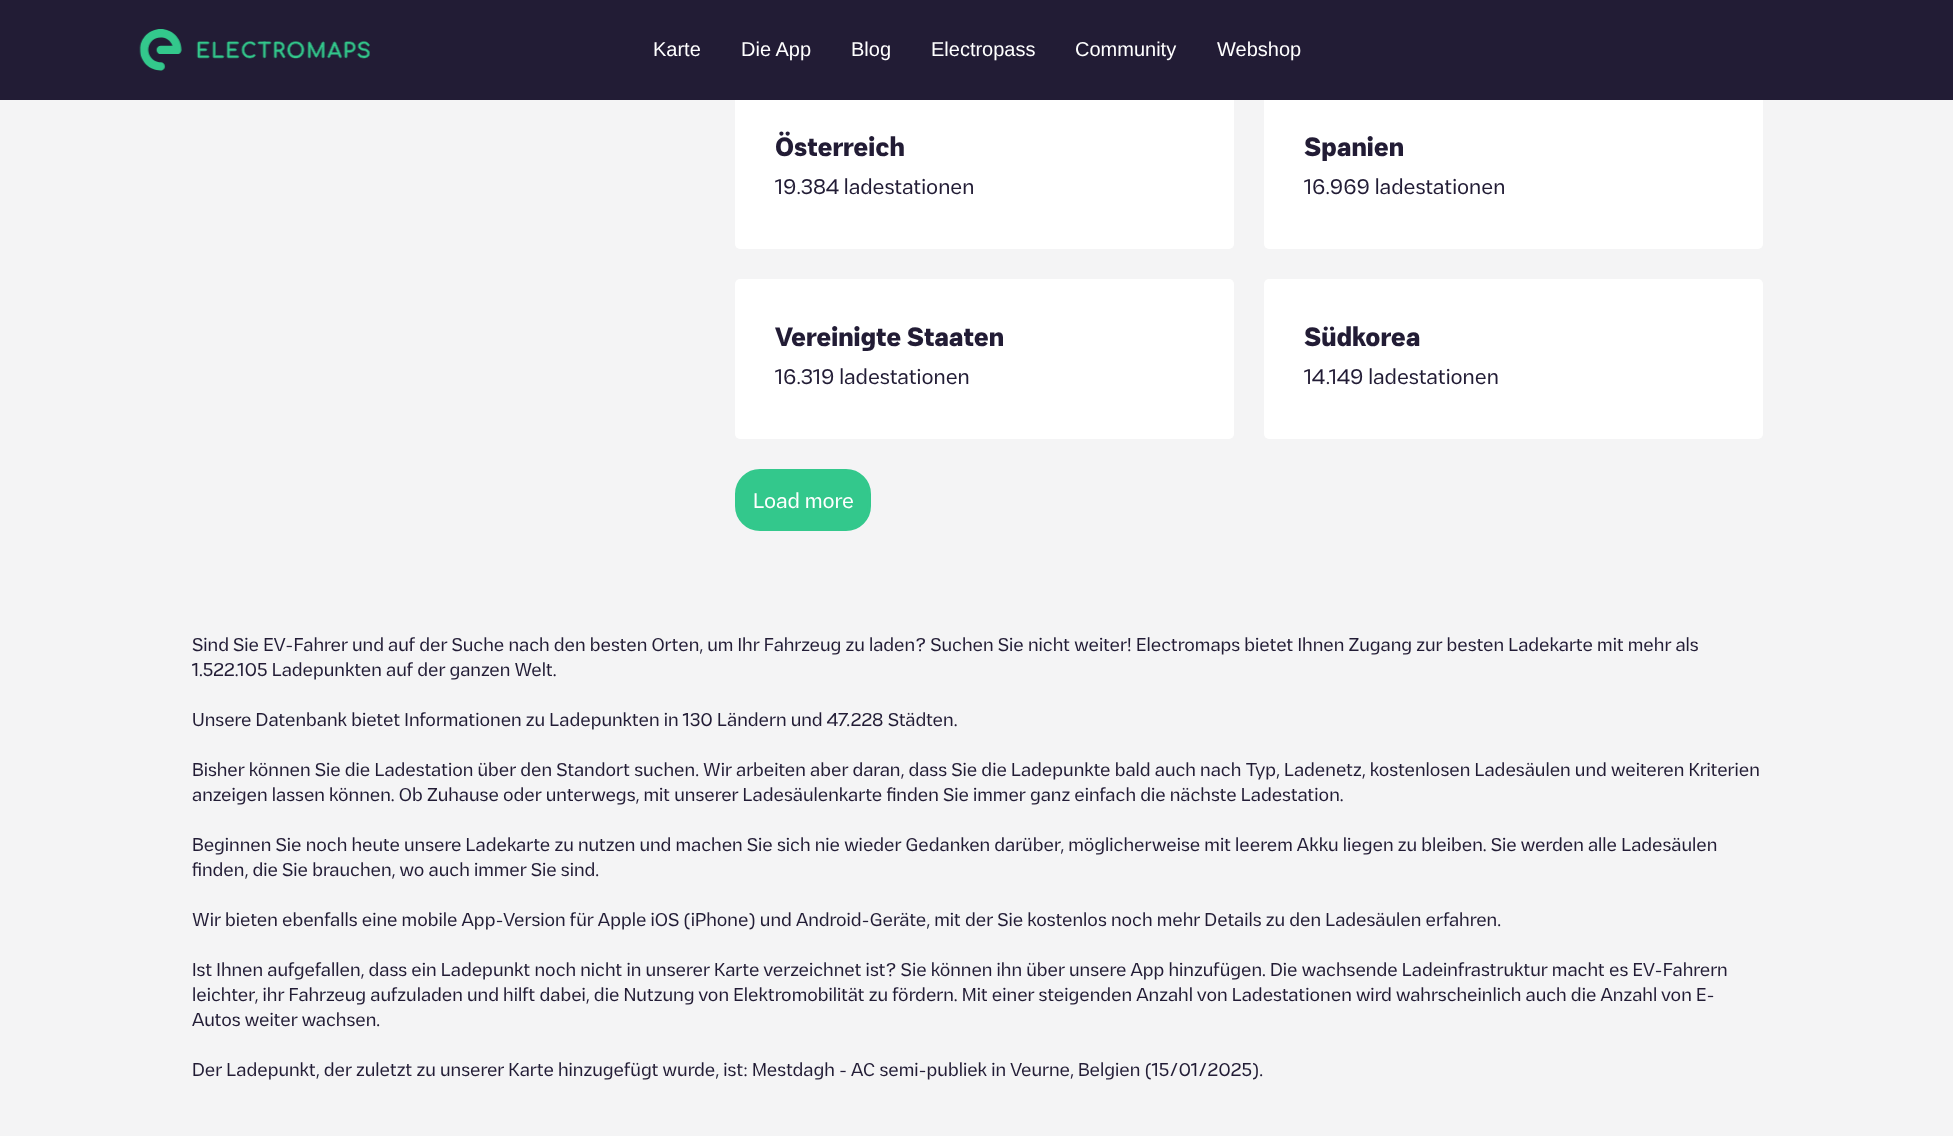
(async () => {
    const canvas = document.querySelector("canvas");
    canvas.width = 1953;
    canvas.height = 1136;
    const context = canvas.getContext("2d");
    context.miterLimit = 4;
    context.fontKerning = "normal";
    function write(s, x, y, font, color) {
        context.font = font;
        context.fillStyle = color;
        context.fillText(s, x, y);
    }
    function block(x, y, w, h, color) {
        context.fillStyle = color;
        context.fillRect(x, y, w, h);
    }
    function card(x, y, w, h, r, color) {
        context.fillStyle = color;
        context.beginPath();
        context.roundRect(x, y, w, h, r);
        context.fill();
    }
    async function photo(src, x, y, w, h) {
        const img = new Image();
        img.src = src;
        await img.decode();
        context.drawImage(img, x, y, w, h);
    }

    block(0, 0, 1953, 1136, "rgb(244, 244, 245)");
    card(735, 89, 499, 160, 5, "rgb(255, 255, 255)");
    card(1264, 89, 499, 160, 5, "rgb(255, 255, 255)");
    block(0, 0, 1953, 100, "rgb(34, 28, 53)");
    await photo("media/1.png", 139, 29, 231, 42);
    write("Karte", 653, 56, "20px Liberation Sans", "rgb(255, 255, 255)");
    write("Die App", 741, 56, "20px Liberation Sans", "rgb(255, 255, 255)");
    write("Blog", 851, 56, "20px Liberation Sans", "rgb(255, 255, 255)");
    write("Electropass", 931, 56, "20px Liberation Sans", "rgb(255, 255, 255)");
    write("Community", 1075, 56, "20px Liberation Sans", "rgb(255, 255, 255)");
    write("Webshop", 1217, 56, "20px Liberation Sans", "rgb(255, 255, 255)");
    write("Österreich", 775, 156, "bold 25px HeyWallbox", "rgb(34, 28, 53)");
    write("19.384 ladestationen", 775, 194, "20px HeyWallbox", "rgb(34, 28, 53)");
    write("Spanien", 1304, 156, "bold 25px HeyWallbox", "rgb(34, 28, 53)");
    write("16.969 ladestationen", 1304, 194, "20px HeyWallbox", "rgb(34, 28, 53)");
    card(735, 279, 499, 160, 5, "rgb(255, 255, 255)");
    write("Vereinigte Staaten", 775, 346, "bold 25px HeyWallbox", "rgb(34, 28, 53)");
    write("16.319 ladestationen", 775, 384, "20px HeyWallbox", "rgb(34, 28, 53)");
    card(1264, 279, 499, 160, 5, "rgb(255, 255, 255)");
    write("Südkorea", 1304, 346, "bold 25px HeyWallbox", "rgb(34, 28, 53)");
    write("14.149 ladestationen", 1304, 384, "20px HeyWallbox", "rgb(34, 28, 53)");
    context.fillStyle = "rgb(51, 200, 140)";
    context.beginPath();
    context.roundRect(736.5, 470.5, 133, 59, 23.5);
    context.fill();
    context.strokeStyle = "rgb(51, 200, 140)";
    context.lineWidth = 3;
    context.stroke();
    write("Load more", 753, 508, "20px HeyWallbox", "rgb(255, 255, 255)");
    write("Sind Sie EV-Fahrer und auf der Suche nach den besten Orten, um Ihr Fahrzeug zu laden? Suchen Sie nicht weiter! Electromaps bietet Ihnen Zugang zur besten Ladekarte mit mehr als", 192, 651, "17.5px HeyWallbox", "rgb(34, 28, 53)");
    write("1.522.105 Ladepunkten auf der ganzen Welt.", 192, 676, "17.5px HeyWallbox", "rgb(34, 28, 53)");
    write("Unsere Datenbank bietet Informationen zu Ladepunkten in 130 Ländern und 47.228 Städten.", 192, 726, "17.5px HeyWallbox", "rgb(34, 28, 53)");
    write("Bisher können Sie die Ladestation über den Standort suchen. Wir arbeiten aber daran, dass Sie die Ladepunkte bald auch nach Typ, Ladenetz, kostenlosen Ladesäulen und weiteren Kriterien", 192, 776, "17.5px HeyWallbox", "rgb(34, 28, 53)");
    write("anzeigen lassen können. Ob Zuhause oder unterwegs, mit unserer Ladesäulenkarte finden Sie immer ganz einfach die nächste Ladestation.", 192, 801, "17.5px HeyWallbox", "rgb(34, 28, 53)");
    write("Beginnen Sie noch heute unsere Ladekarte zu nutzen und machen Sie sich nie wieder Gedanken darüber, möglicherweise mit leerem Akku liegen zu bleiben. Sie werden alle Ladesäulen", 192, 851, "17.5px HeyWallbox", "rgb(34, 28, 53)");
    write("finden, die Sie brauchen, wo auch immer Sie sind.", 192, 876, "17.5px HeyWallbox", "rgb(34, 28, 53)");
    write("Wir bieten ebenfalls eine mobile App-Version für Apple iOS (iPhone) und Android-Geräte, mit der Sie kostenlos noch mehr Details zu den Ladesäulen erfahren.", 192, 926, "17.5px HeyWallbox", "rgb(34, 28, 53)");
    write("Ist Ihnen aufgefallen, dass ein Ladepunkt noch nicht in unserer Karte verzeichnet ist? Sie können ihn über unsere App hinzufügen. Die wachsende Ladeinfrastruktur macht es EV-Fahrern", 192, 976, "17.5px HeyWallbox", "rgb(34, 28, 53)");
    write("leichter, ihr Fahrzeug aufzuladen und hilft dabei, die Nutzung von Elektromobilität zu fördern. Mit einer steigenden Anzahl von Ladestationen wird wahrscheinlich auch die Anzahl von E-", 192, 1001, "17.5px HeyWallbox", "rgb(34, 28, 53)");
    write("Autos weiter wachsen.", 192, 1026, "17.5px HeyWallbox", "rgb(34, 28, 53)");
    write("Der Ladepunkt, der zuletzt zu unserer Karte hinzugefügt wurde, ist: Mestdagh - AC semi-publiek in Veurne, Belgien (15/01/2025).", 192, 1076, "17.5px HeyWallbox", "rgb(34, 28, 53)");
})();
